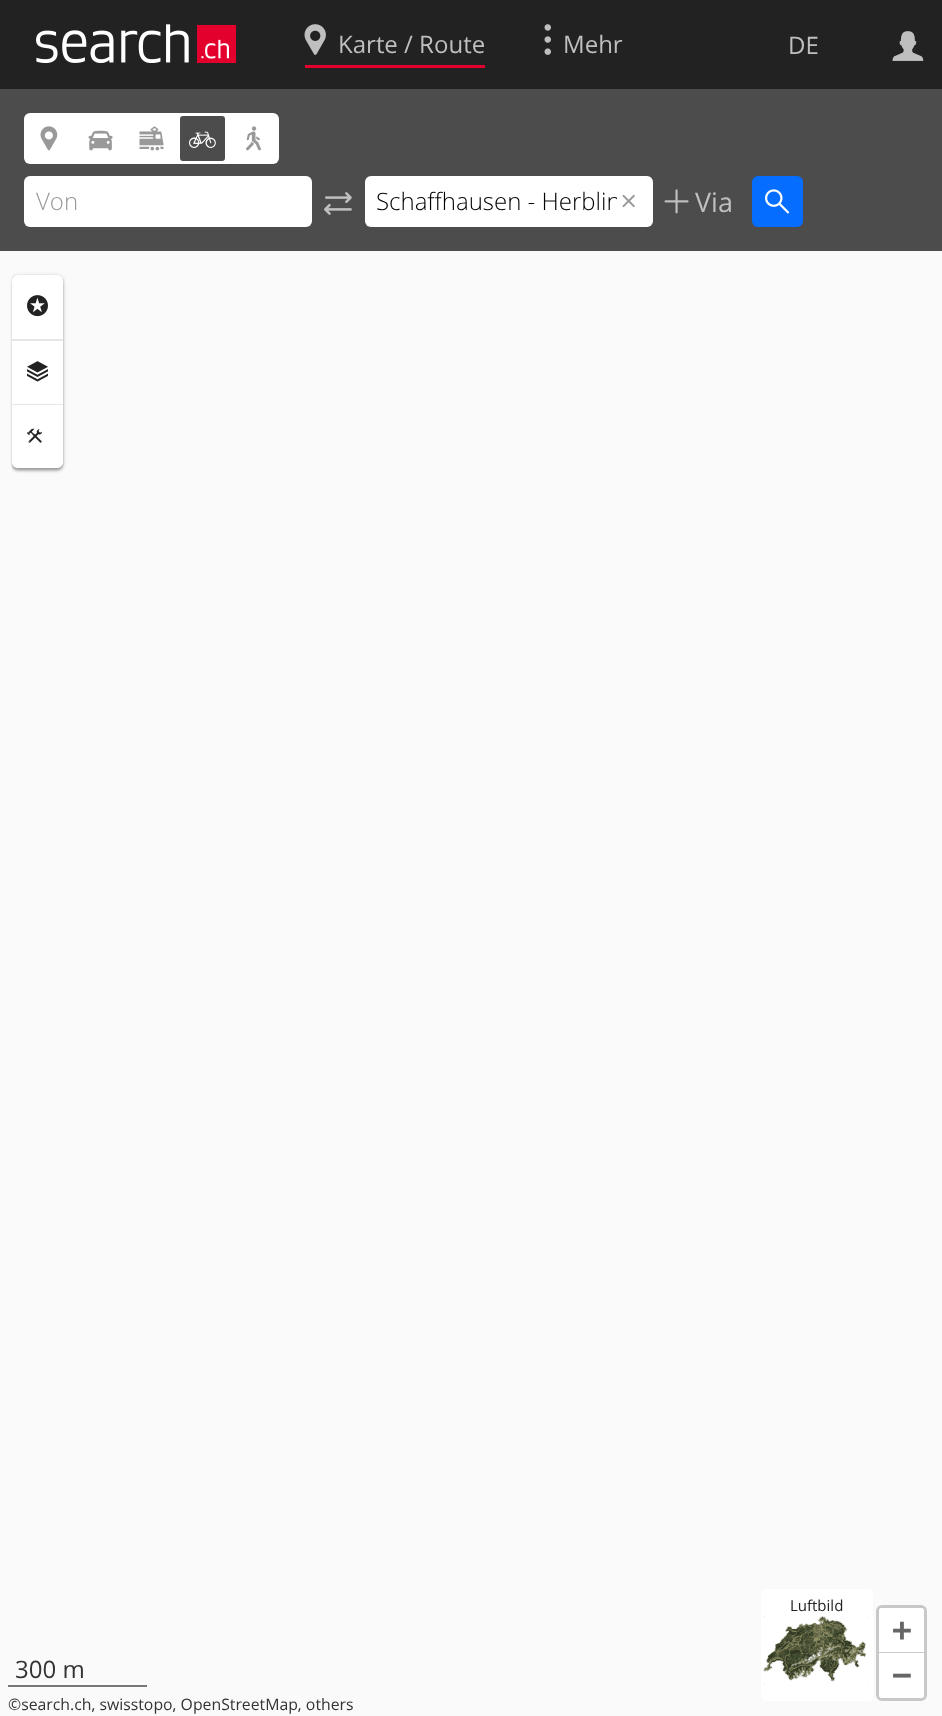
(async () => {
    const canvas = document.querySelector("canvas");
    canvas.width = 942;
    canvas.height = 1716;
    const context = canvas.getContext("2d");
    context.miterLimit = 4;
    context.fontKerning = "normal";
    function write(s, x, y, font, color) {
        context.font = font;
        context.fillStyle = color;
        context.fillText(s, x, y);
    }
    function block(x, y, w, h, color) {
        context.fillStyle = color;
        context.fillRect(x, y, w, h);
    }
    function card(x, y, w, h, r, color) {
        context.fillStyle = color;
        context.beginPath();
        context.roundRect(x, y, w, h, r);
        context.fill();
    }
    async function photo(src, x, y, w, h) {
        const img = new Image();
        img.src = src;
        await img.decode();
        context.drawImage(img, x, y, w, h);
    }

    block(0, 0, 942, 1716, "rgb(250, 250, 250)");
    block(0, 0, 942, 89, "rgb(34, 34, 34)");
    await photo("media/1.png", 36, 24, 200, 39);
    block(305, 65, 180, 3, "rgb(228, 0, 44)");
    await photo("media/2.png", 304, 24, 22, 31);
    write("Karte / Route", 338, 53, "24px Open Sans", "rgb(191, 191, 191)");
    await photo("media/3.png", 544, 24, 7, 31);
    write("Mehr", 563, 53, "24px Open Sans", "rgb(191, 191, 191)");
    write("DE", 788, 54, "24px Open Sans", "rgb(191, 191, 191)");
    await photo("media/4.png", 892, 31, 32, 30);
    block(0, 89, 942, 162, "rgb(76, 76, 76)");
    card(24, 113, 255, 51, 6, "rgb(255, 255, 255)");
    await photo("media/5.png", 40, 126, 18, 25);
    await photo("media/6.png", 88, 130, 25, 21);
    await photo("media/7.png", 139, 126, 25, 25);
    context.fillStyle = "rgb(76, 76, 76)";
    context.beginPath();
    context.roundRect(178.5, 114.5, 48, 48, 4.5);
    context.fill();
    context.strokeStyle = "rgb(255, 255, 255)";
    context.lineWidth = 3;
    context.stroke();
    await photo("media/8.png", 246, 126, 15, 25);
    await photo("media/9.png", 189, 131, 27, 17);
    card(24, 176, 288, 51, 6, "rgb(255, 255, 255)");
    write("Von", 36, 210, "300 24px Open Sans", "rgb(153, 153, 153)");
    await photo("media/10.png", 324, 192, 28, 23);
    card(365, 176, 288, 51, 6, "rgb(255, 255, 255)");
    context.save();
    context.beginPath();
    context.rect(377, 185, 240, 33);
    context.clip();
    write("Schaffhausen - Herblin", 376, 210, "300 24px Open Sans", "rgb(0, 0, 0)");
    context.restore();
    await photo("media/11.png", 622, 194, 13, 14);
    await photo("media/12.png", 664, 189, 25, 25);
    write("Via", 695, 212, "27px Open Sans", "rgb(191, 191, 191)");
    card(752, 176, 51, 51, 6, "rgb(5, 109, 255)");
    await photo("media/13.png", 765, 189, 25, 25);
    context.save();
    context.beginPath();
    context.rect(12, 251, 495, 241);
    context.clip();
    context.fillStyle = "rgba(0, 0, 0, 0.2)";
    context.filter = "blur(2px)";
    context.beginPath();
    context.roundRect(12, 276, 51, 194, 6);
    context.fill();
    context.filter = "none";
    context.restore();
    context.fillStyle = "rgba(0, 0, 0, 0.12)";
    context.filter = "blur(1px)";
    context.beginPath();
    context.roundRect(12, 278, 51, 193, 6);
    context.fill();
    context.filter = "none";
    context.fillStyle = "rgba(0, 0, 0, 0.14)";
    context.filter = "blur(1px)";
    context.beginPath();
    context.roundRect(12, 276, 51, 194, 6);
    context.fill();
    context.filter = "none";
    card(12, 275, 51, 193, 6, "rgb(255, 255, 255)");
    block(12, 339, 51, 2, "rgb(230, 230, 230)");
    await photo("media/14.png", 27, 295, 21, 22);
    block(12, 404, 51, 1, "rgb(230, 230, 230)");
    await photo("media/15.png", 27, 361, 21, 21);
    context.save();
    context.beginPath();
    context.roundRect(12, 275, 51, 193, 5);
    context.clip();
    context.fillStyle = "rgb(255, 255, 255)";
    context.beginPath();
    context.roundRect(12, 405, 51, 63, [0, 0, 6, 6]);
    context.fill();
    context.restore();
    await photo("media/16.png", 27, 428, 15, 15);
    card(761, 1589, 112, 112, 5, "rgb(255, 255, 255)");
    await photo("media/17.png", 763, 1616, 106, 68);
    write("Luftbild", 790, 1611, "15px Open Sans", "rgb(34, 34, 34)");
    context.beginPath();
    context.roundRect(877.5, 1606.5, 48, 93, 4.5);
    context.strokeStyle = "rgb(200, 200, 200)";
    context.stroke();
    context.fillStyle = "rgb(255, 255, 255)";
    context.beginPath();
    context.roundRect(879, 1608, 45, 45, [3, 3, 0, 0]);
    context.fill();
    block(879, 1652, 45, 1, "rgb(204, 204, 204)");
    write("+", 892, 1641, "bold 33px DejaVu Sans Mono", "rgb(102, 102, 102)");
    context.fillStyle = "rgb(255, 255, 255)";
    context.beginPath();
    context.roundRect(879, 1653, 45, 45, [0, 0, 3, 3]);
    context.fill();
    write("−", 892, 1686, "bold 33px DejaVu Sans Mono", "rgb(102, 102, 102)");
    block(8, 1687, 139, 1, "rgb(253, 253, 253)");
    block(8, 1683, 139, 2, "rgb(253, 253, 253)");
    block(8, 1685, 139, 2, "rgb(119, 119, 119)");
    write("300 m", 15, 1678, "24px Open Sans", "rgb(51, 51, 51)");
    write("©search.ch, swisstopo, OpenStreetMap, others", 8, 1710, "15.8px Open Sans", "rgb(51, 51, 51)");
})();
